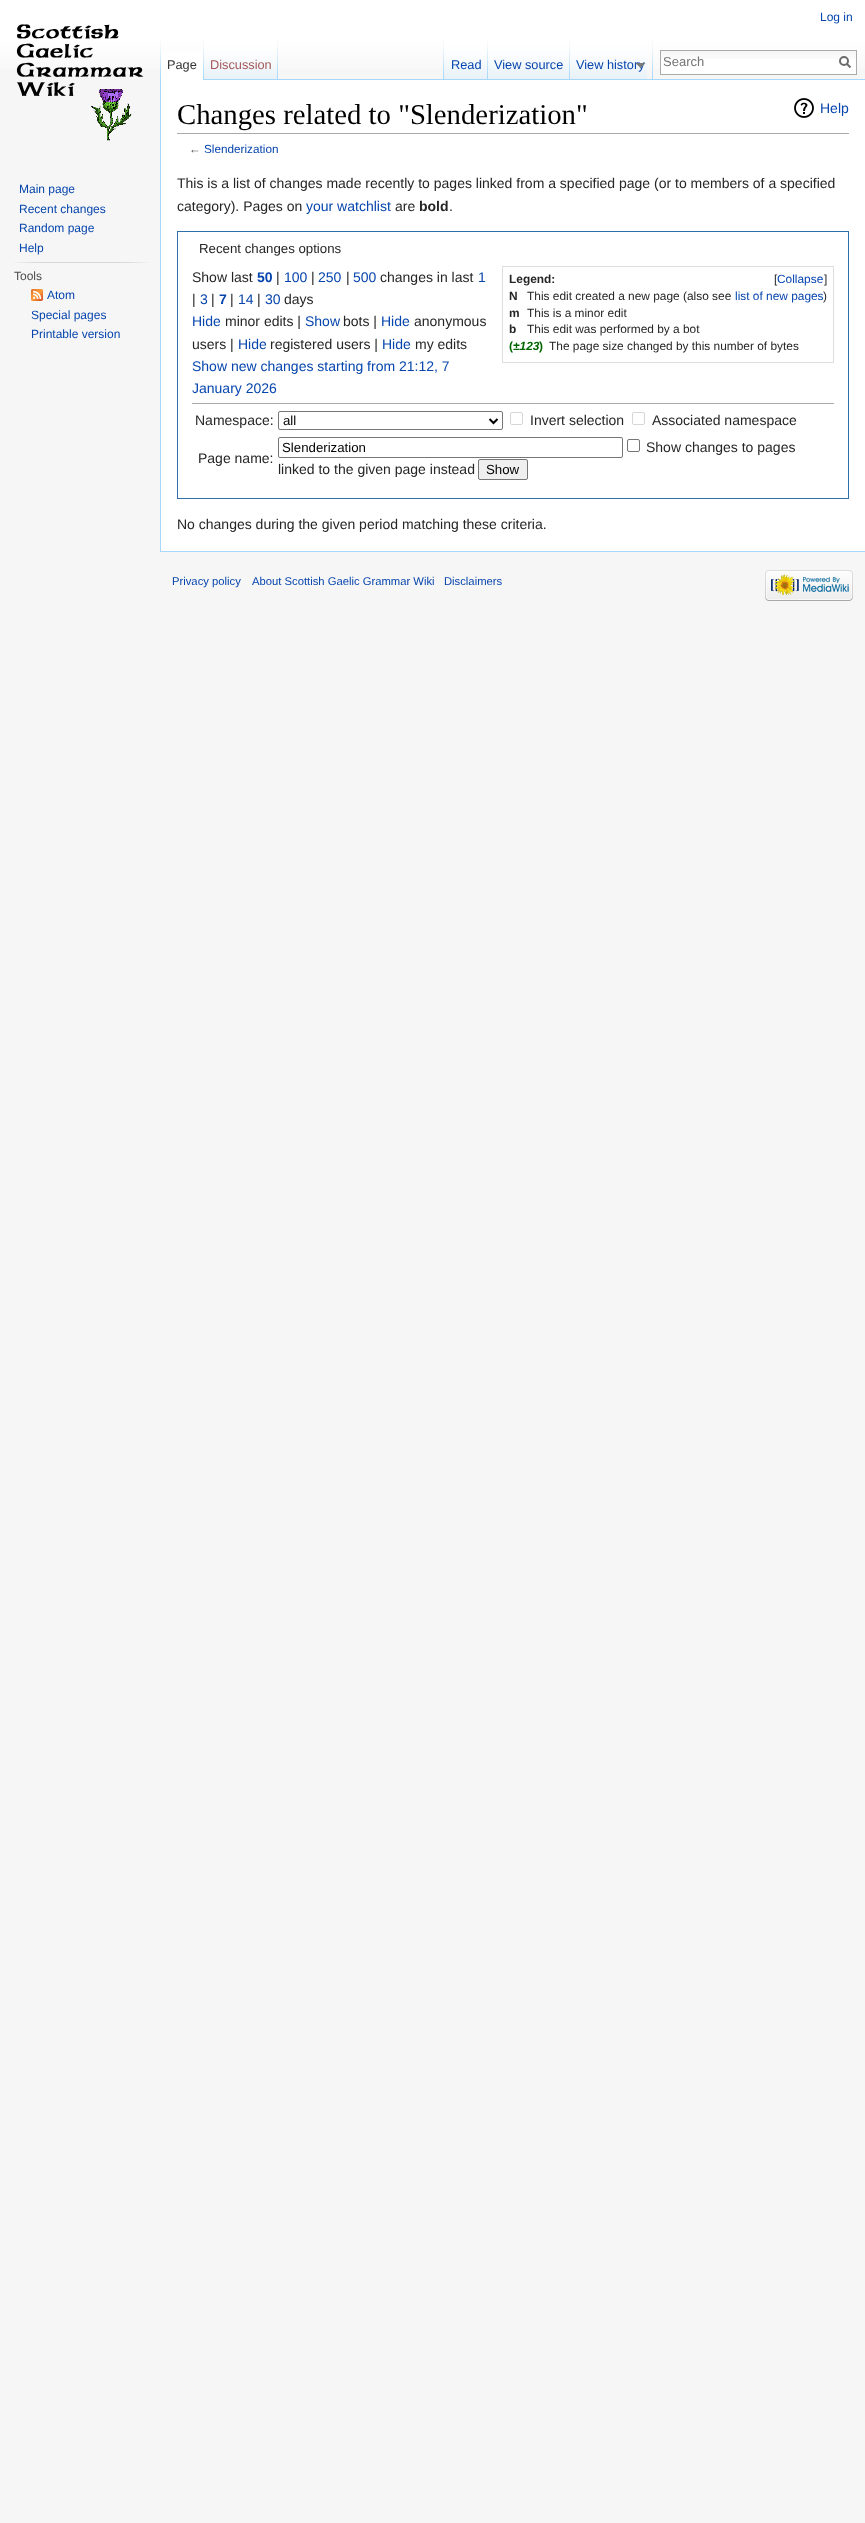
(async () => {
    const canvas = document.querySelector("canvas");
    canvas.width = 865;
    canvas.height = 2523;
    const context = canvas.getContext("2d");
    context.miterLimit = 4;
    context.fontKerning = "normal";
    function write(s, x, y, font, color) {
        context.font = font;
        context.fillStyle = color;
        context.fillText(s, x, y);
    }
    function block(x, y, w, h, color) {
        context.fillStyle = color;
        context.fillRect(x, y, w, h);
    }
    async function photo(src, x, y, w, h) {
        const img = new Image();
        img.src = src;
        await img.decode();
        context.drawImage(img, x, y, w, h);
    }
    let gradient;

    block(0, 0, 865, 2523, "rgb(246, 246, 246)");
    gradient = context.createLinearGradient(433, 0, 433, 80);
    gradient.addColorStop(0.5, "rgb(255, 255, 255)");
    gradient.addColorStop(1, "rgb(246, 246, 246)");
    context.fillStyle = gradient;
    context.fillRect(0, 0, 865, 69);
    write("Log in", 820, 21, "12px Liberation Sans", "rgb(6, 69, 173)");
    await photo("media/1.png", 160, 40, 1, 39);
    block(161, 51, 42, 29, "rgb(255, 255, 255)");
    await photo("media/2.png", 203, 40, 1, 40);
    write("Page", 167, 69, "12.75px Liberation Sans", "rgb(51, 51, 51)");
    await photo("media/3.png", 204, 40, 74, 40);
    await photo("media/4.png", 277, 40, 1, 39);
    write("Discussion", 210, 69, "12.75px Liberation Sans", "rgb(165, 88, 88)");
    await photo("media/1.png", 652, 40, 1, 39);
    block(278, 79, 587, 1, "rgb(167, 215, 249)");
    await photo("media/8.png", 570, 40, 77, 40);
    write("View history", 576, 69, "12.75px Liberation Sans", "rgb(6, 69, 173)");
    context.fillStyle = "rgb(121, 121, 121)";
    context.beginPath();
    context.moveTo(645.5, 63);
    context.lineTo(640.5, 68);
    context.lineTo(635.5, 63);
    context.closePath();
    context.fill();
    block(661, 59, 195, 15, "rgb(255, 255, 255)");
    await photo("media/5.png", 661, 51, 195, 8);
    context.strokeStyle = "rgb(170, 170, 170)";
    context.strokeRect(660.5, 50.5, 196, 24);
    write("Search", 663, 66, "13px Liberation Sans", "rgb(117, 117, 117)");
    context.beginPath();
    context.moveTo(850.5, 67.5);
    context.lineTo(846.5, 63.5);
    context.strokeStyle = "rgb(108, 108, 108)";
    context.lineWidth = 2;
    context.stroke();
    context.beginPath();
    context.arc(844, 61, 4, 0, Math.PI * 2);
    context.stroke();
    await photo("media/1.png", 443, 40, 1, 39);
    await photo("media/6.png", 444, 40, 44, 40);
    await photo("media/4.png", 487, 40, 1, 39);
    write("Read", 451, 69, "12.75px Liberation Sans", "rgb(6, 69, 173)");
    await photo("media/7.png", 488, 40, 82, 40);
    await photo("media/4.png", 569, 40, 1, 39);
    write("View source", 494, 69, "12.75px Liberation Sans", "rgb(6, 69, 173)");
    await photo("media/9.png", 16, 24, 128, 117);
    write("Main page", 19, 193, "12px Liberation Sans", "rgb(6, 69, 173)");
    write("Recent changes", 19, 213, "12px Liberation Sans", "rgb(6, 69, 173)");
    write("Random page", 19, 232, "12px Liberation Sans", "rgb(6, 69, 173)");
    write("Help", 19, 252, "12px Liberation Sans", "rgb(6, 69, 173)");
    await photo("media/10.png", 14, 262, 135, 1);
    write("Tools", 14, 280, "12px Liberation Sans", "rgb(77, 77, 77)");
    await photo("media/11.png", 31, 289, 12, 12);
    write("Atom", 47, 299, "12px Liberation Sans", "rgb(6, 69, 173)");
    write("Special pages", 31, 319, "12px Liberation Sans", "rgb(6, 69, 173)");
    write("Printable version", 31, 338, "12px Liberation Sans", "rgb(6, 69, 173)");
    block(161, 80, 704, 471, "rgb(255, 255, 255)");
    block(160, 551, 705, 1, "rgb(167, 215, 249)");
    block(160, 79, 1, 473, "rgb(167, 215, 249)");
    block(177, 133, 672, 1, "rgb(170, 170, 170)");
    write("Changes related to \"Slenderization\"", 177, 124, "28.75px Liberation Serif", "rgb(0, 0, 0)");
    await photo("media/12.png", 794, 98, 20, 20);
    write("Help", 820, 113, "14px Liberation Sans", "rgb(6, 69, 173)");
    write("←", 189, 153, "11.75px Liberation Sans", "rgb(84, 84, 84)");
    write("Slenderization", 204, 153, "11.75px Liberation Sans", "rgb(6, 69, 173)");
    write("This is a list of changes made recently to pages linked from a specified page (or to members of a specified", 177, 188, "14px Liberation Sans", "rgb(37, 37, 37)");
    write("category). Pages on", 177, 211, "14px Liberation Sans", "rgb(37, 37, 37)");
    write("your watchlist", 306, 211, "14px Liberation Sans", "rgb(6, 69, 173)");
    write("are", 395, 211, "14px Liberation Sans", "rgb(37, 37, 37)");
    write("bold", 419, 211, "bold 14px Liberation Sans", "rgb(37, 37, 37)");
    write(".", 449, 211, "14px Liberation Sans", "rgb(37, 37, 37)");
    context.strokeStyle = "rgb(47, 111, 171)";
    context.lineWidth = 1;
    context.strokeRect(177.5, 231.5, 671, 267);
    write("Recent changes options", 199, 253, "13.25px Liberation Sans", "rgb(37, 37, 37)");
    write("Show last", 192, 282, "14px Liberation Sans", "rgb(37, 37, 37)");
    write("50", 257, 282, "bold 14px Liberation Sans", "rgb(6, 69, 173)");
    write("|", 276, 282, "14px Liberation Sans", "rgb(37, 37, 37)");
    write("100", 284, 282, "14px Liberation Sans", "rgb(6, 69, 173)");
    write("|", 311, 282, "14px Liberation Sans", "rgb(37, 37, 37)");
    write("250", 318, 282, "14px Liberation Sans", "rgb(6, 69, 173)");
    write("|", 346, 282, "14px Liberation Sans", "rgb(37, 37, 37)");
    write("500", 353, 282, "14px Liberation Sans", "rgb(6, 69, 173)");
    write("changes in last", 380, 282, "14px Liberation Sans", "rgb(37, 37, 37)");
    write("1", 478, 282, "14px Liberation Sans", "rgb(6, 69, 173)");
    context.strokeStyle = "rgb(221, 221, 221)";
    context.strokeRect(502.5, 266.5, 331, 96);
    write("Legend:", 509, 283, "bold 11.9px Liberation Sans", "rgb(37, 37, 37)");
    write("[", 774, 283, "11.9px Liberation Sans", "rgb(37, 37, 37)");
    write("Collapse", 777, 283, "11.9px Liberation Sans", "rgb(6, 69, 173)");
    write("]", 824, 283, "11.9px Liberation Sans", "rgb(37, 37, 37)");
    write("N", 509, 300, "bold 11.9px Liberation Sans", "rgb(37, 37, 37)");
    write("This edit created a new page (also see", 527, 300, "11.9px Liberation Sans", "rgb(37, 37, 37)");
    write("list of new pages", 735, 300, "11.9px Liberation Sans", "rgb(6, 69, 173)");
    write(")", 823, 300, "11.9px Liberation Sans", "rgb(37, 37, 37)");
    write("m", 509, 317, "bold 11.9px Liberation Sans", "rgb(37, 37, 37)");
    write("This is a minor edit", 527, 317, "11.9px Liberation Sans", "rgb(37, 37, 37)");
    write("b", 509, 333, "bold 11.9px Liberation Sans", "rgb(37, 37, 37)");
    write("This edit was performed by a bot", 527, 333, "11.9px Liberation Sans", "rgb(37, 37, 37)");
    write("(", 509, 350, "bold 11.9px Liberation Sans", "rgb(0, 100, 0)");
    write("±123", 513, 350, "italic bold 11.9px Liberation Sans", "rgb(0, 100, 0)");
    write(")", 539, 350, "bold 11.9px Liberation Sans", "rgb(0, 100, 0)");
    write("The page size changed by this number of bytes", 549, 350, "11.9px Liberation Sans", "rgb(37, 37, 37)");
    write("|", 192, 304, "14px Liberation Sans", "rgb(37, 37, 37)");
    write("3", 200, 304, "14px Liberation Sans", "rgb(6, 69, 173)");
    write("|", 211, 304, "14px Liberation Sans", "rgb(37, 37, 37)");
    write("7", 219, 304, "bold 14px Liberation Sans", "rgb(6, 69, 173)");
    write("|", 230, 304, "14px Liberation Sans", "rgb(37, 37, 37)");
    write("14", 238, 304, "14px Liberation Sans", "rgb(6, 69, 173)");
    write("|", 257, 304, "14px Liberation Sans", "rgb(37, 37, 37)");
    write("30", 265, 304, "14px Liberation Sans", "rgb(6, 69, 173)");
    write("days", 284, 304, "14px Liberation Sans", "rgb(37, 37, 37)");
    write("Hide", 192, 326, "14px Liberation Sans", "rgb(6, 69, 173)");
    write("minor edits |", 225, 326, "14px Liberation Sans", "rgb(37, 37, 37)");
    write("Show", 305, 326, "14px Liberation Sans", "rgb(6, 69, 173)");
    write("bots |", 343, 326, "14px Liberation Sans", "rgb(37, 37, 37)");
    write("Hide", 381, 326, "14px Liberation Sans", "rgb(6, 69, 173)");
    write("anonymous", 414, 326, "14px Liberation Sans", "rgb(37, 37, 37)");
    write("users |", 192, 349, "14px Liberation Sans", "rgb(37, 37, 37)");
    write("Hide", 238, 349, "14px Liberation Sans", "rgb(6, 69, 173)");
    write("registered users |", 270, 349, "14px Liberation Sans", "rgb(37, 37, 37)");
    write("Hide", 382, 349, "14px Liberation Sans", "rgb(6, 69, 173)");
    write("my edits", 415, 349, "14px Liberation Sans", "rgb(37, 37, 37)");
    write("Show new changes starting from 21:12, 7", 192, 371, "14px Liberation Sans", "rgb(6, 69, 173)");
    write("January 2026", 192, 393, "14px Liberation Sans", "rgb(6, 69, 173)");
    block(192, 403, 642, 1, "rgb(170, 170, 170)");
    write("Namespace:", 195, 425, "14px Liberation Sans", "rgb(37, 37, 37)");
    context.beginPath();
    context.roundRect(278.5, 411.5, 224, 18, 1.5);
    context.strokeStyle = "rgb(118, 118, 118)";
    context.stroke();
    context.beginPath();
    context.moveTo(489.5, 419);
    context.lineTo(493.5, 423);
    context.lineTo(497.5, 419);
    context.strokeStyle = "rgb(0, 0, 0)";
    context.lineWidth = 2;
    context.stroke();
    write("all", 283, 425, "13.25px Liberation Sans", "rgb(0, 0, 0)");
    context.beginPath();
    context.roundRect(510.5, 412.5, 12, 12, 1.5);
    context.strokeStyle = "rgb(214, 214, 214)";
    context.lineWidth = 1;
    context.stroke();
    write("Invert selection", 530, 425, "14px Liberation Sans", "rgb(37, 37, 37)");
    context.beginPath();
    context.roundRect(632.5, 412.5, 12, 12, 1.5);
    context.stroke();
    write("Associated namespace", 652, 425, "14px Liberation Sans", "rgb(37, 37, 37)");
    write("Page name:", 198, 463, "14px Liberation Sans", "rgb(37, 37, 37)");
    context.beginPath();
    context.roundRect(278.5, 437.5, 344, 20, 1.5);
    context.strokeStyle = "rgb(118, 118, 118)";
    context.stroke();
    write("Slenderization", 282, 452, "13.25px Liberation Sans", "rgb(0, 0, 0)");
    context.beginPath();
    context.roundRect(627.5, 439.5, 12, 12, 1.5);
    context.stroke();
    write("Show changes to pages", 646, 452, "14px Liberation Sans", "rgb(37, 37, 37)");
    write("linked to the given page instead", 278, 474, "14px Liberation Sans", "rgb(37, 37, 37)");
    context.fillStyle = "rgb(239, 239, 239)";
    context.beginPath();
    context.roundRect(478.5, 459.5, 49, 20, 1.5);
    context.fill();
    context.stroke();
    write("Show", 486, 474, "13.25px Liberation Sans", "rgb(0, 0, 0)");
    write("No changes during the given period matching these criteria.", 177, 529, "14px Liberation Sans", "rgb(37, 37, 37)");
    write("Privacy policy", 172, 585, "11.25px Liberation Sans", "rgb(6, 69, 173)");
    write("About Scottish Gaelic Grammar Wiki", 252, 585, "11.25px Liberation Sans", "rgb(6, 69, 173)");
    write("Disclaimers", 444, 585, "11.25px Liberation Sans", "rgb(6, 69, 173)");
    await photo("media/13.png", 765, 570, 88, 31);
})();
